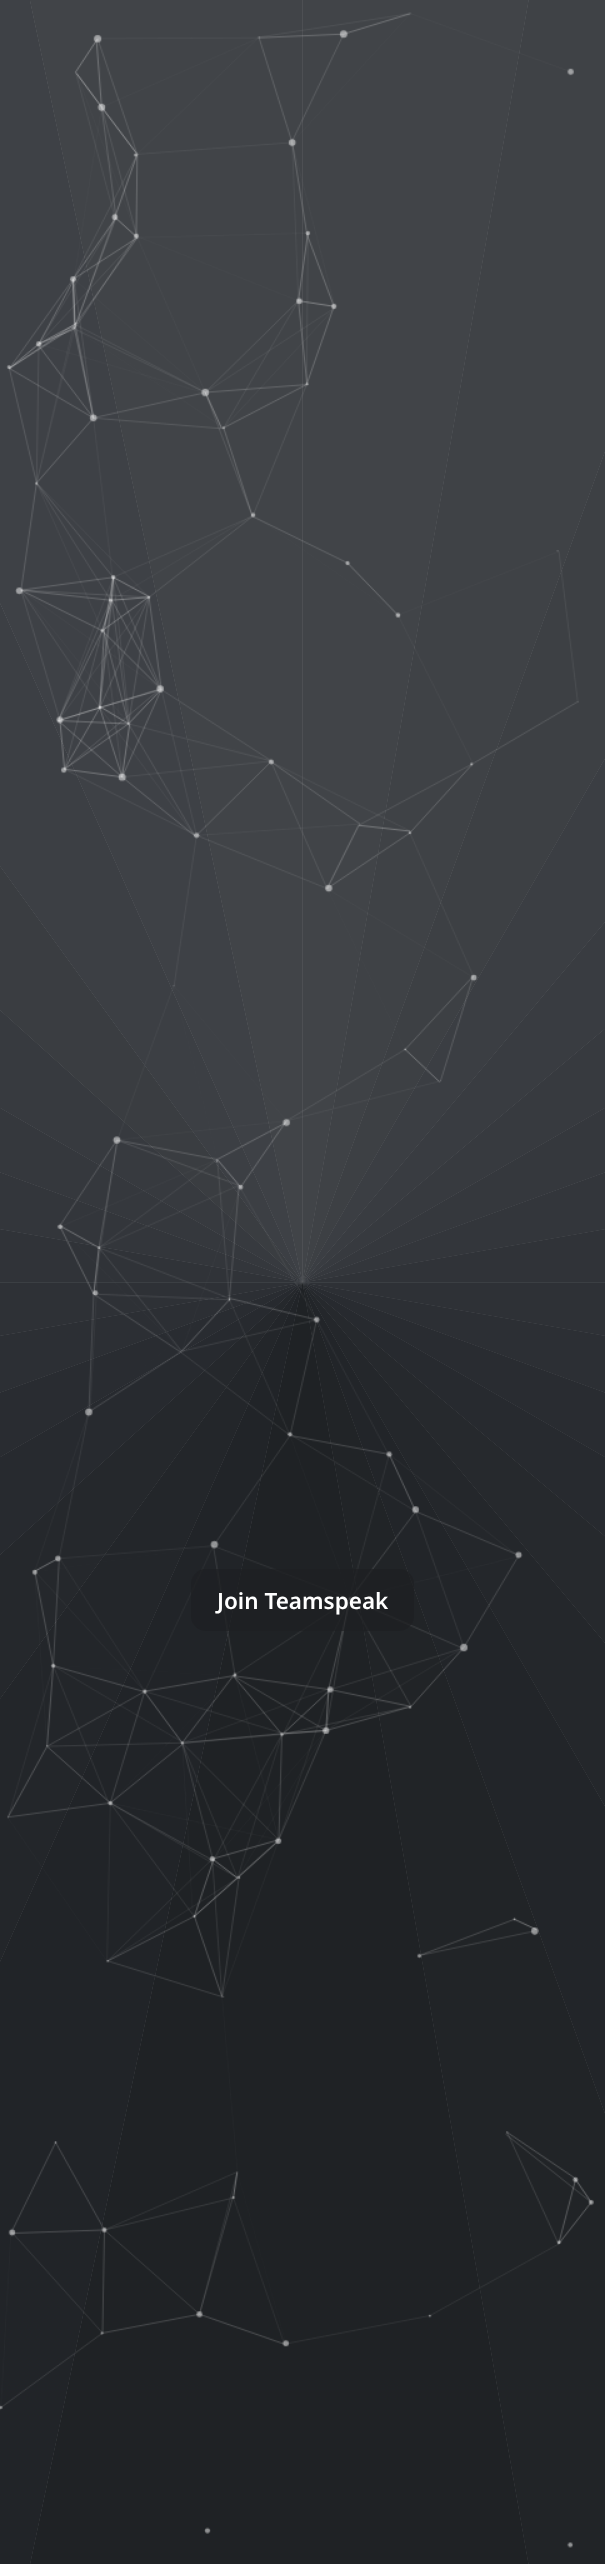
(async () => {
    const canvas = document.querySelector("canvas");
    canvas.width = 605;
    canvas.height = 2564;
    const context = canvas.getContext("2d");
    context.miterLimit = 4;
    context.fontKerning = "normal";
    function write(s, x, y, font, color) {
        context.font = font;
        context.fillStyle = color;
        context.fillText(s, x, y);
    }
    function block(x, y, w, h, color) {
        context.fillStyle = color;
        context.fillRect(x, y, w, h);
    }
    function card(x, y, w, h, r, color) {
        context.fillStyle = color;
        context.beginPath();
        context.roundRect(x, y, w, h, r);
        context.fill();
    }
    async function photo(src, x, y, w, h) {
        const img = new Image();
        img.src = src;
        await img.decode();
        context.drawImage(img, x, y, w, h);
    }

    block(0, 0, 605, 2564, "rgb(255, 255, 255)");
    await photo("media/1.png", 0, 0, 605, 2564);
    await photo("media/2.png", 0, 0, 605, 2564);
    await photo("media/3.png", 0, 12, 594, 2536);
    card(191, 1569, 223, 62, 15, "rgba(30, 31, 34, 0.7)");
    write("Join Teamspeak", 217, 1609, "600 22.5px Noto Sans", "rgb(255, 255, 255)");
})();
